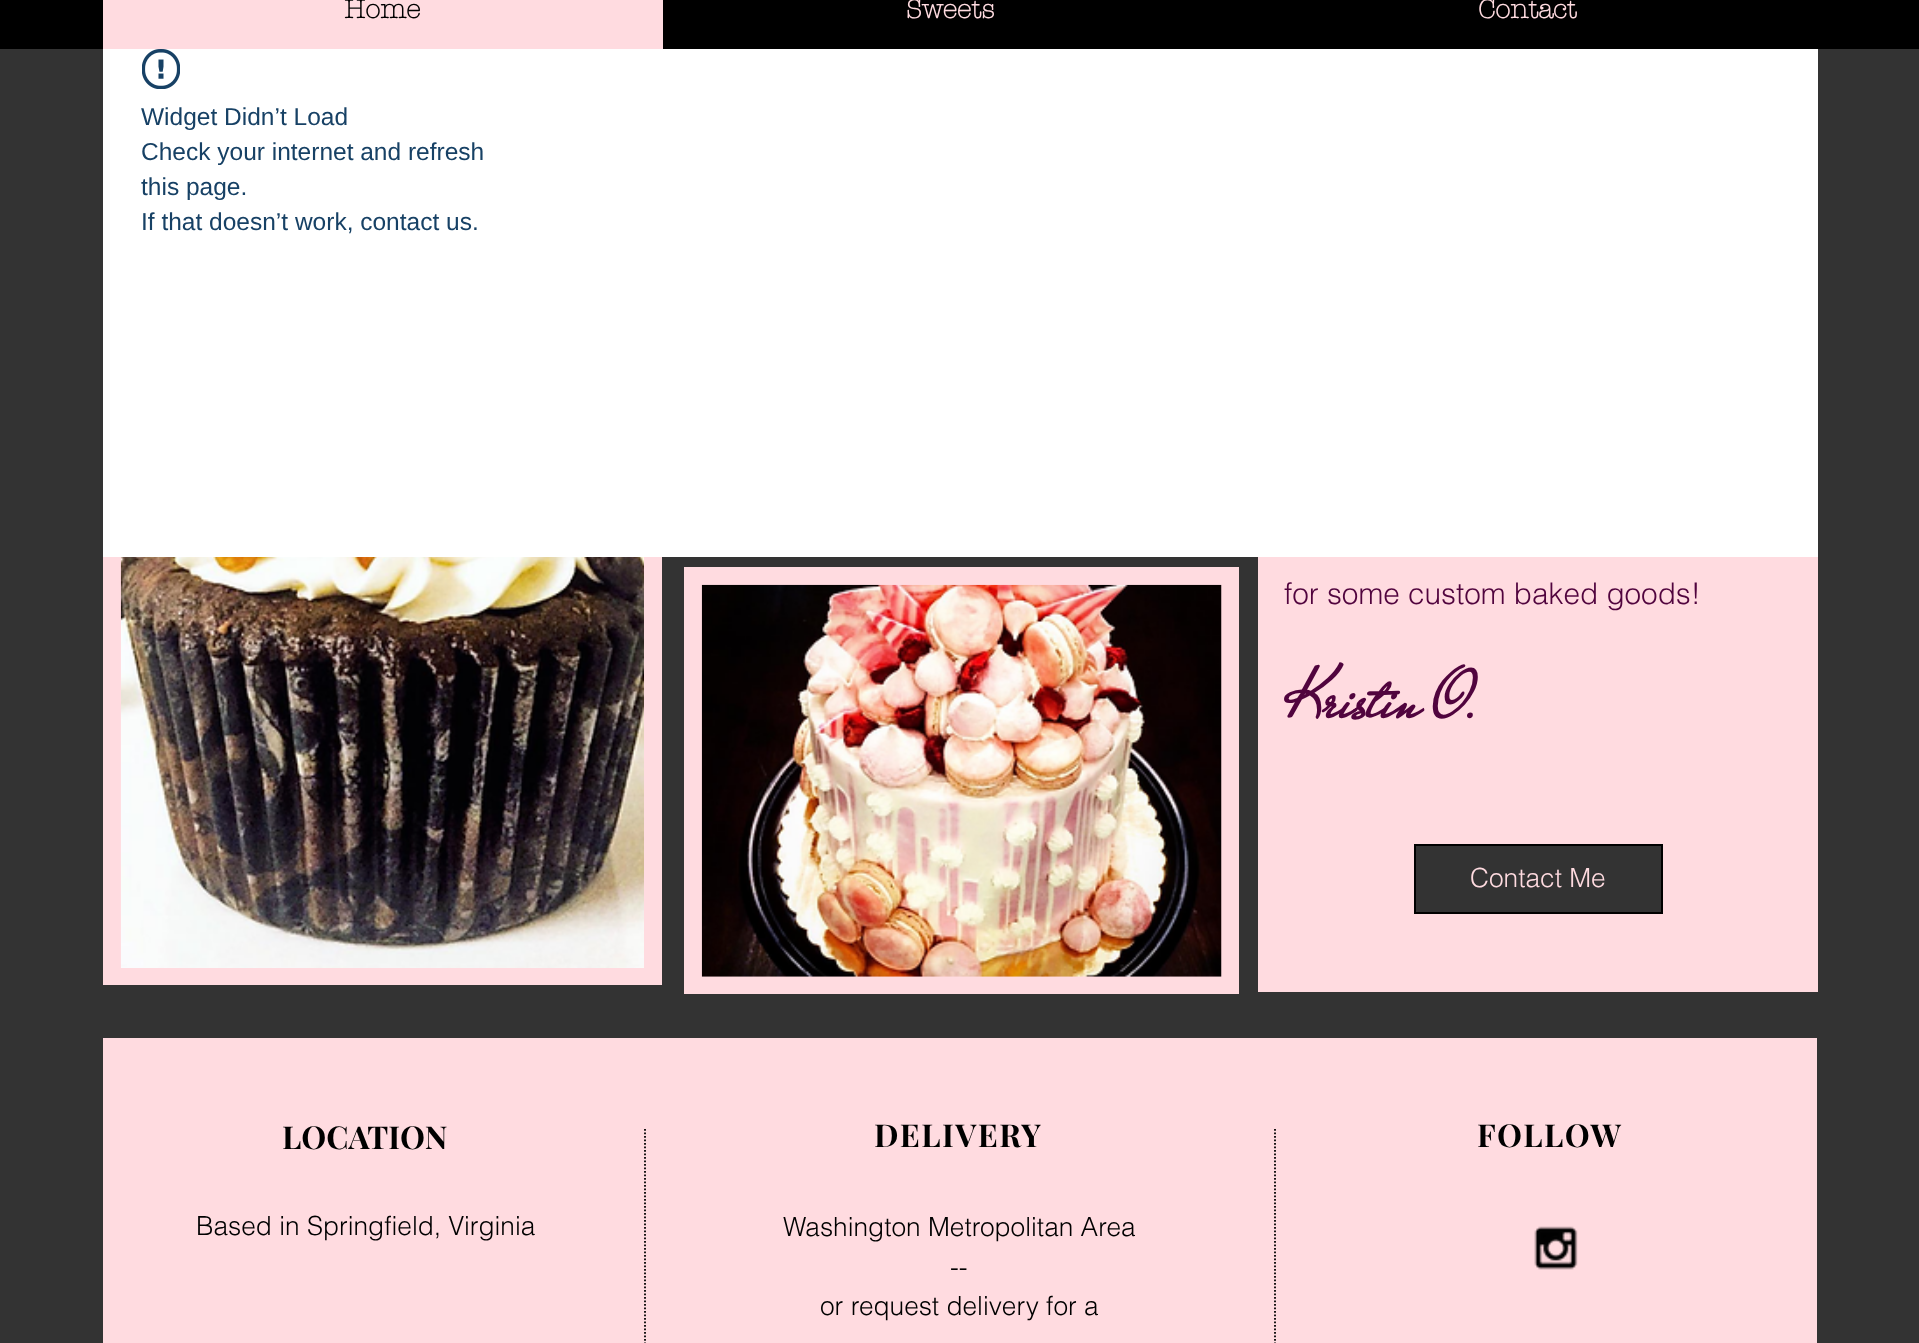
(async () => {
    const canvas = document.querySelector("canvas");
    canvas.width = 1919;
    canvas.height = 1343;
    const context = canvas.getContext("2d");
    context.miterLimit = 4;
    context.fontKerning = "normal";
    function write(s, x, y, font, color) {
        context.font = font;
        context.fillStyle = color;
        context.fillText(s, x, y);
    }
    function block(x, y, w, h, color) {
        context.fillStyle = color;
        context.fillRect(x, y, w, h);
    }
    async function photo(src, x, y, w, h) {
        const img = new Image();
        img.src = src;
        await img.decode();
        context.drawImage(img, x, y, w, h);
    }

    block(0, 0, 1919, 1343, "rgb(51, 51, 51)");
    block(0, 0, 1919, 49, "rgb(0, 0, 0)");
    block(103, 0, 560, 49, "rgb(255, 219, 224)");
    write("Home", 344, 18, "bold 26.25px 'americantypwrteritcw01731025'", "rgb(0, 0, 0)");
    write("Sweets", 906, 18, "bold 26.25px 'americantypwrteritcw01731025'", "rgb(255, 219, 224)");
    write("Contact", 1478, 18, "bold 26.25px 'americantypwrteritcw01731025'", "rgb(255, 219, 224)");
    block(103, 49, 1715, 508, "rgb(255, 255, 255)");
    await photo("media/1.png", 142, 49, 38, 40);
    write("Widget Didn’t Load", 141, 125, "24.5px Liberation Sans", "rgb(23, 65, 101)");
    write("Check your internet and refresh", 141, 160, "24.5px Liberation Sans", "rgb(23, 65, 101)");
    write("this page.", 141, 195, "24.5px Liberation Sans", "rgb(23, 65, 101)");
    write("If that doesn’t work, contact us.", 141, 230, "24.5px Liberation Sans", "rgb(23, 65, 101)");
    block(103, 557, 559, 428, "rgb(255, 219, 224)");
    await photo("media/2.png", 120, 557, 524, 411);
    block(684, 567, 555, 427, "rgb(255, 219, 224)");
    await photo("media/3.png", 701, 584, 521, 393);
    block(1258, 557, 560, 435, "rgb(255, 219, 224)");
    write("for some custom baked goods!", 1284, 604, "300 29.75px helvetica", "rgb(81, 4, 62)");
    write("Kristin O.", 1284, 717, "bold 72px Mr De Haviland", "rgb(81, 4, 62)");
    context.fillStyle = "rgb(51, 51, 51)";
    context.beginPath();
    context.rect(1415, 845, 247, 68);
    context.fill();
    context.strokeStyle = "rgb(0, 0, 0)";
    context.lineWidth = 2;
    context.stroke();
    write("Contact Me", 1470, 887, "300 26.25px helvetica", "rgb(255, 219, 224)");
    block(103, 1038, 1714, 305, "rgb(255, 219, 224)");
    write("LOCATION", 282, 1149, "bold 31.5px Playfair Display", "rgb(0, 0, 0)");
    context.beginPath();
    context.moveTo(645, 1129);
    context.lineTo(645, 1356);
    context.lineWidth = 1.8;
    context.setLineDash([1.75, 1.75]);
    context.stroke();
    context.letterSpacing = "1.5px";
    write("DELIVERY", 874, 1147, "bold 31.5px Playfair Display", "rgb(0, 0, 0)");
    context.beginPath();
    context.moveTo(1275, 1129);
    context.lineTo(1275, 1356);
    context.stroke();
    write("FOLLOW", 1477, 1147, "bold 31.5px Playfair Display", "rgb(0, 0, 0)");
    context.letterSpacing = "0px";
    write("Based in Springfield, Virginia", 196, 1235, "300 26.25px helvetica", "rgb(0, 0, 0)");
    write("Washington Metropolitan Area", 783, 1236, "300 26.25px helvetica", "rgb(0, 0, 0)");
    write("--", 950, 1276, "300 26.25px helvetica", "rgb(0, 0, 0)");
    write("or request delivery for a", 820, 1315, "300 26.25px helvetica", "rgb(0, 0, 0)");
    await photo("media/4.png", 1534, 1226, 44, 44);
})();
